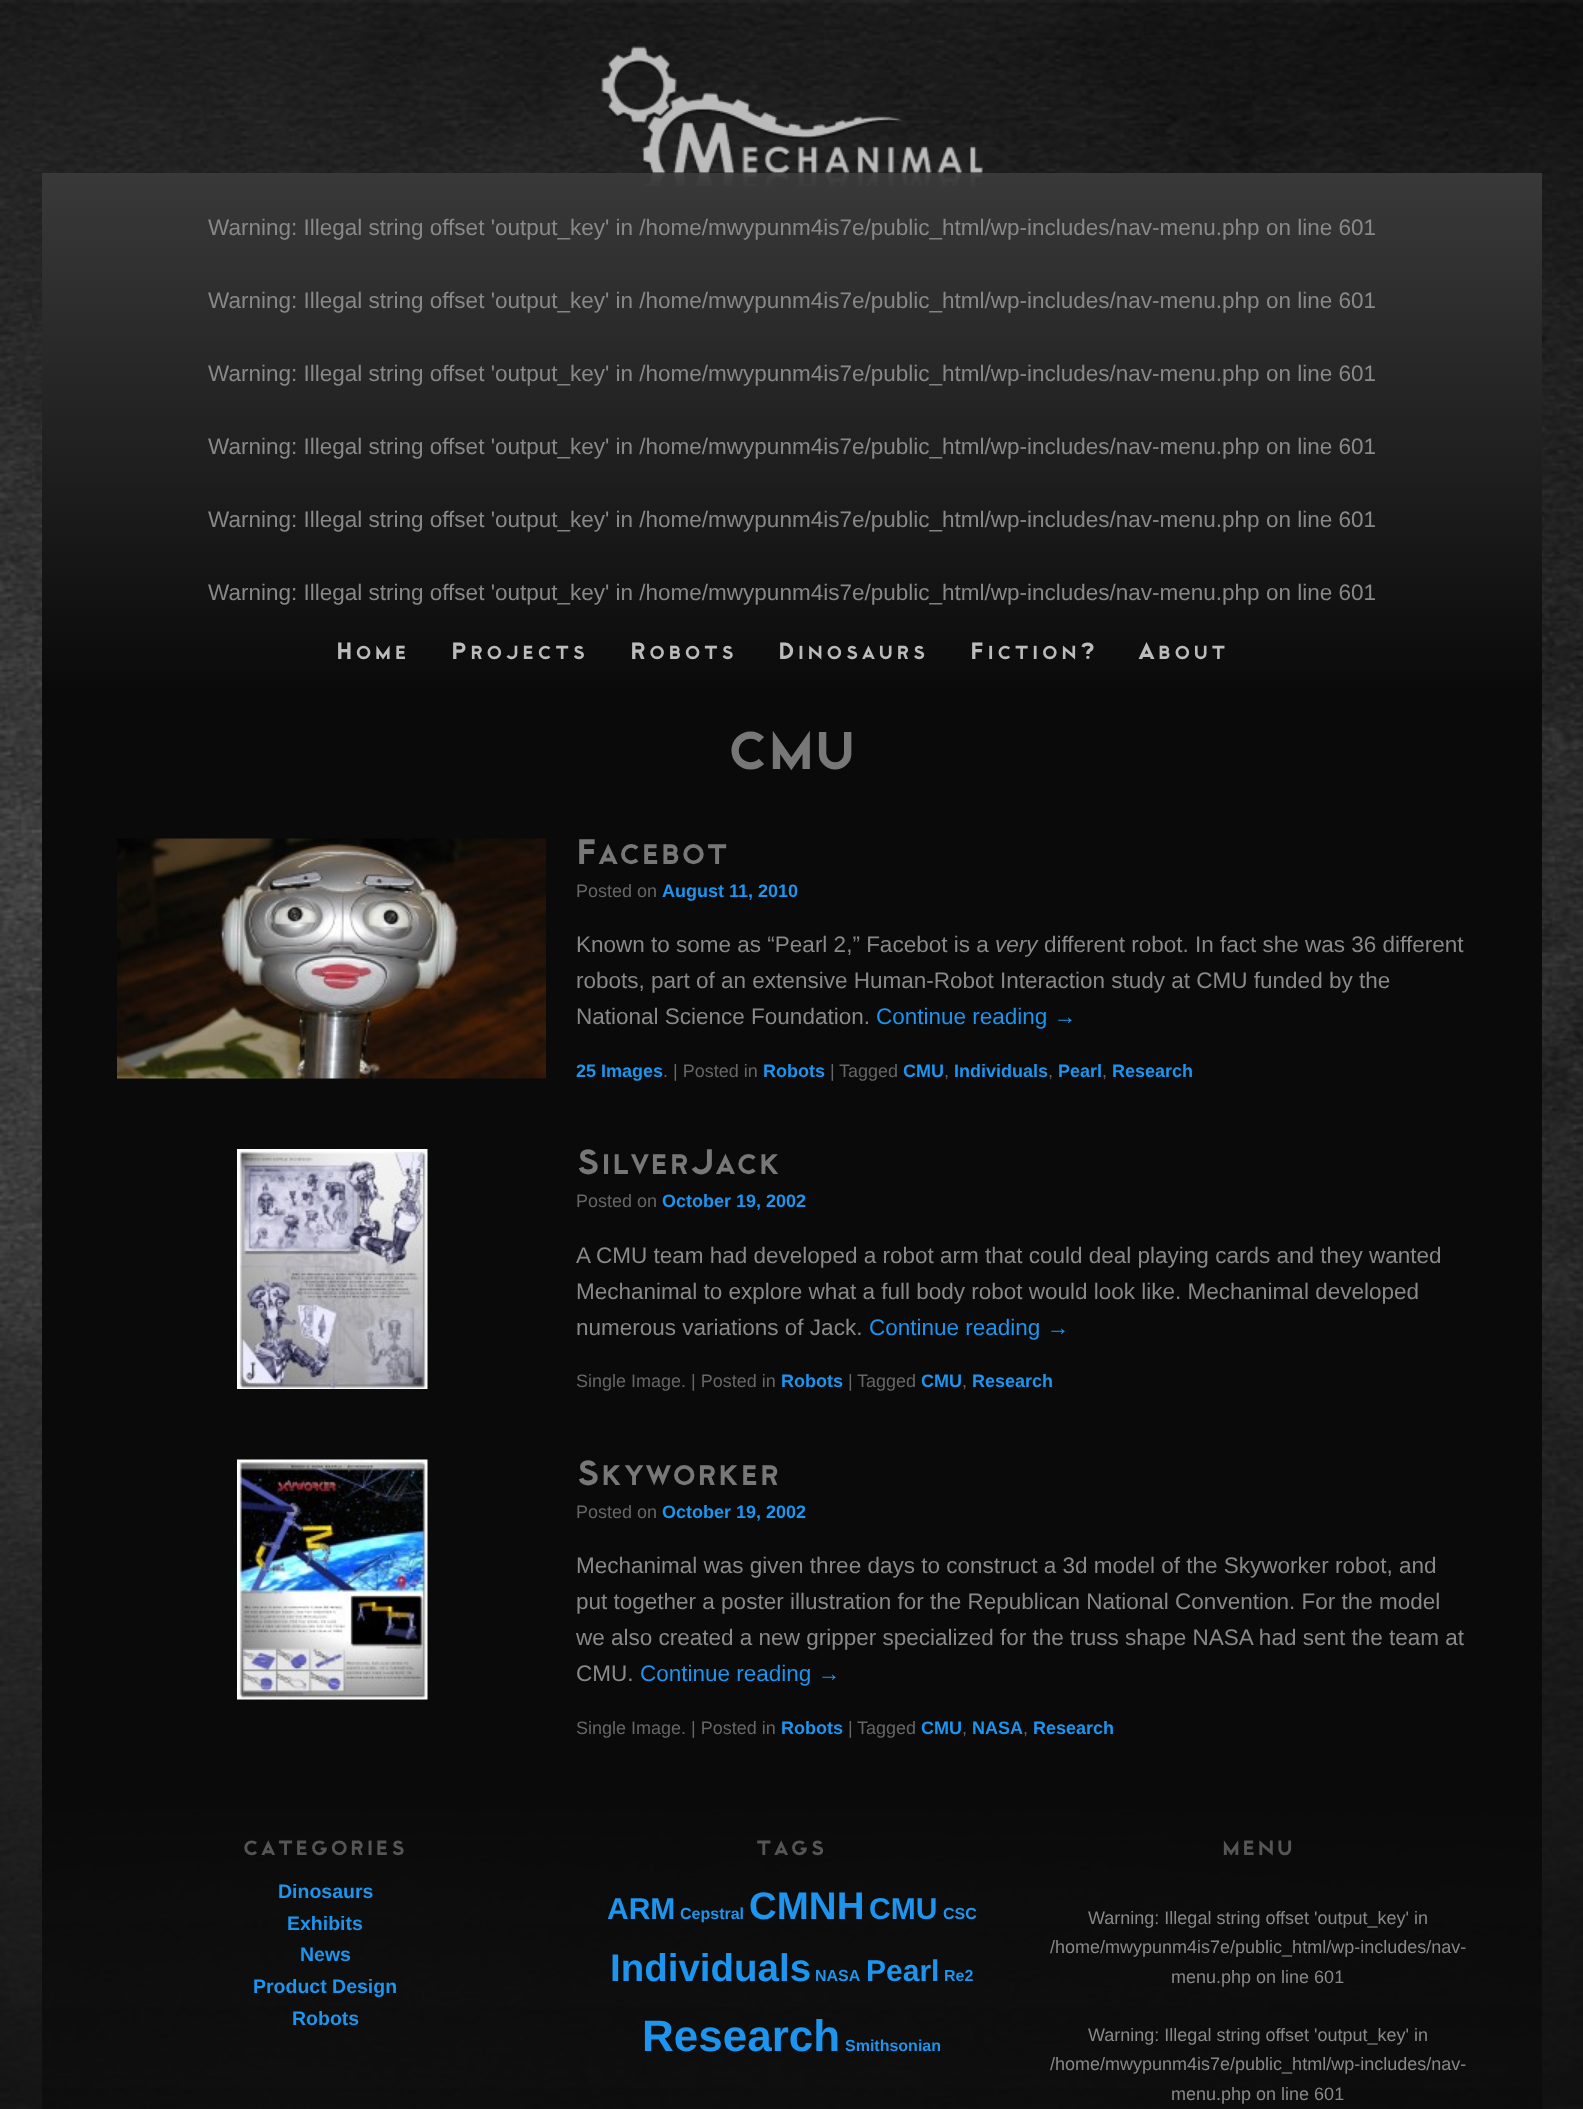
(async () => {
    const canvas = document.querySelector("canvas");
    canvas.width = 1583;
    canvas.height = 2109;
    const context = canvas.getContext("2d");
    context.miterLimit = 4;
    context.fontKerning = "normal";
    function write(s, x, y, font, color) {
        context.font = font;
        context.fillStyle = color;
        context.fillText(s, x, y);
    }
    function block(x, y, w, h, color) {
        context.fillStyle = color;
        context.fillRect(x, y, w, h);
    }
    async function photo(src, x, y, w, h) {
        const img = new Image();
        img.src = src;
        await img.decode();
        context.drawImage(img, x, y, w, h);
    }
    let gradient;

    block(0, 0, 1583, 2109, "rgb(255, 255, 255)");
    await photo("media/1.png", 0, 0, 1583, 2109);
    await photo("media/2.png", 601, 46, 382, 127);
    gradient = context.createLinearGradient(792, 172, 792, 692);
    gradient.addColorStop(0, "rgb(57, 57, 57)");
    gradient.addColorStop(1, "rgb(10, 10, 10)");
    context.fillStyle = gradient;
    context.fillRect(42, 173, 1500, 519);
    await photo("media/3.png", 645, 173, 337, 13);
    write("Warning: Illegal string offset 'output_key' in /home/mwypunm4is7e/public_html/wp-includes/nav-menu.php on line 601", 208, 235, "22.5px Liberation Sans", "rgb(136, 136, 136)");
    write("Warning: Illegal string offset 'output_key' in /home/mwypunm4is7e/public_html/wp-includes/nav-menu.php on line 601", 208, 308, "22.5px Liberation Sans", "rgb(136, 136, 136)");
    write("Warning: Illegal string offset 'output_key' in /home/mwypunm4is7e/public_html/wp-includes/nav-menu.php on line 601", 208, 381, "22.5px Liberation Sans", "rgb(136, 136, 136)");
    write("Warning: Illegal string offset 'output_key' in /home/mwypunm4is7e/public_html/wp-includes/nav-menu.php on line 601", 208, 454, "22.5px Liberation Sans", "rgb(136, 136, 136)");
    write("Warning: Illegal string offset 'output_key' in /home/mwypunm4is7e/public_html/wp-includes/nav-menu.php on line 601", 208, 527, "22.5px Liberation Sans", "rgb(136, 136, 136)");
    write("Warning: Illegal string offset 'output_key' in /home/mwypunm4is7e/public_html/wp-includes/nav-menu.php on line 601", 208, 600, "22.5px Liberation Sans", "rgb(136, 136, 136)");
    context.letterSpacing = "2.5px";
    write("Home", 336, 659, "24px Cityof", "rgb(187, 187, 187)");
    write("Projects", 451, 659, "24px Cityof", "rgb(187, 187, 187)");
    write("Robots", 630, 659, "24px Cityof", "rgb(187, 187, 187)");
    write("Dinosaurs", 778, 659, "24px Cityof", "rgb(187, 187, 187)");
    write("Fiction?", 970, 659, "24px Cityof", "rgb(187, 187, 187)");
    write("About", 1138, 659, "24px Cityof", "rgb(187, 187, 187)");
    block(42, 692, 1500, 1107, "rgb(10, 10, 10)");
    context.letterSpacing = "0px";
    write("CMU", 728, 769, "54px Cityof", "rgb(119, 119, 119)");
    await photo("media/4.png", 117, 838, 429, 241);
    write("Facebot", 576, 864, "36px Cityof", "rgb(119, 119, 119)");
    write("Posted on", 576, 897, "18px Liberation Sans", "rgb(102, 102, 102)");
    write("August 11, 2010", 662, 897, "bold 18px Liberation Sans", "rgb(29, 148, 237)");
    write("Known to some as “Pearl 2,” Facebot is a", 576, 952, "22.5px Liberation Sans", "rgb(136, 136, 136)");
    write("very", 995, 952, "italic 22.5px Liberation Sans", "rgb(136, 136, 136)");
    write("different robot. In fact she was 36 different", 1044, 952, "22.5px Liberation Sans", "rgb(136, 136, 136)");
    write("robots, part of an extensive Human-Robot Interaction study at CMU funded by the", 576, 988, "22.5px Liberation Sans", "rgb(136, 136, 136)");
    write("National Science Foundation.", 576, 1024, "22.5px Liberation Sans", "rgb(136, 136, 136)");
    write("Continue reading →", 876, 1024, "22.5px Liberation Sans", "rgb(29, 148, 237)");
    write("25 Images", 576, 1077, "bold 18px Liberation Sans", "rgb(29, 148, 237)");
    write(". | Posted in", 663, 1077, "18px Liberation Sans", "rgb(102, 102, 102)");
    write("Robots", 763, 1077, "bold 18px Liberation Sans", "rgb(29, 148, 237)");
    write("|", 830, 1077, "18px Liberation Sans", "rgb(102, 102, 102)");
    write("Tagged", 839, 1077, "18px Liberation Sans", "rgb(102, 102, 102)");
    write("CMU", 903, 1077, "bold 18px Liberation Sans", "rgb(29, 148, 237)");
    write(",", 944, 1077, "18px Liberation Sans", "rgb(102, 102, 102)");
    write("Individuals", 954, 1077, "bold 18px Liberation Sans", "rgb(29, 148, 237)");
    write(",", 1048, 1077, "18px Liberation Sans", "rgb(102, 102, 102)");
    write("Pearl", 1058, 1077, "bold 18px Liberation Sans", "rgb(29, 148, 237)");
    write(",", 1102, 1077, "18px Liberation Sans", "rgb(102, 102, 102)");
    write("Research", 1112, 1077, "bold 18px Liberation Sans", "rgb(29, 148, 237)");
    await photo("media/5.png", 237, 1149, 191, 240);
    write("SilverJack", 576, 1174, "36px Cityof", "rgb(119, 119, 119)");
    write("Posted on", 576, 1207, "18px Liberation Sans", "rgb(102, 102, 102)");
    write("October 19, 2002", 662, 1207, "bold 18px Liberation Sans", "rgb(29, 148, 237)");
    write("A CMU team had developed a robot arm that could deal playing cards and they wanted", 576, 1263, "22.5px Liberation Sans", "rgb(136, 136, 136)");
    write("Mechanimal to explore what a full body robot would look like. Mechanimal developed", 576, 1299, "22.5px Liberation Sans", "rgb(136, 136, 136)");
    write("numerous variations of Jack.", 576, 1335, "22.5px Liberation Sans", "rgb(136, 136, 136)");
    write("Continue reading →", 869, 1335, "22.5px Liberation Sans", "rgb(29, 148, 237)");
    write("Single Image. | Posted in", 576, 1387, "18px Liberation Sans", "rgb(102, 102, 102)");
    write("Robots", 781, 1387, "bold 18px Liberation Sans", "rgb(29, 148, 237)");
    write("|", 848, 1387, "18px Liberation Sans", "rgb(102, 102, 102)");
    write("Tagged", 857, 1387, "18px Liberation Sans", "rgb(102, 102, 102)");
    write("CMU", 921, 1387, "bold 18px Liberation Sans", "rgb(29, 148, 237)");
    write(",", 962, 1387, "18px Liberation Sans", "rgb(102, 102, 102)");
    write("Research", 972, 1387, "bold 18px Liberation Sans", "rgb(29, 148, 237)");
    await photo("media/6.png", 237, 1459, 191, 241);
    write("Skyworker", 576, 1485, "36px Cityof", "rgb(119, 119, 119)");
    write("Posted on", 576, 1518, "18px Liberation Sans", "rgb(102, 102, 102)");
    write("October 19, 2002", 662, 1518, "bold 18px Liberation Sans", "rgb(29, 148, 237)");
    write("Mechanimal was given three days to construct a 3d model of the Skyworker robot, and", 576, 1573, "22.5px Liberation Sans", "rgb(136, 136, 136)");
    write("put together a poster illustration for the Republican National Convention. For the model", 576, 1609, "22.5px Liberation Sans", "rgb(136, 136, 136)");
    write("we also created a new gripper specialized for the truss shape NASA had sent the team at", 576, 1645, "22.5px Liberation Sans", "rgb(136, 136, 136)");
    write("CMU.", 576, 1681, "22.5px Liberation Sans", "rgb(136, 136, 136)");
    write("Continue reading →", 640, 1681, "22.5px Liberation Sans", "rgb(29, 148, 237)");
    write("Single Image. | Posted in", 576, 1734, "18px Liberation Sans", "rgb(102, 102, 102)");
    write("Robots", 781, 1734, "bold 18px Liberation Sans", "rgb(29, 148, 237)");
    write("|", 848, 1734, "18px Liberation Sans", "rgb(102, 102, 102)");
    write("Tagged", 857, 1734, "18px Liberation Sans", "rgb(102, 102, 102)");
    write("CMU", 921, 1734, "bold 18px Liberation Sans", "rgb(29, 148, 237)");
    write(",", 962, 1734, "18px Liberation Sans", "rgb(102, 102, 102)");
    write("NASA", 972, 1734, "bold 18px Liberation Sans", "rgb(29, 148, 237)");
    write(",", 1023, 1734, "18px Liberation Sans", "rgb(102, 102, 102)");
    write("Research", 1033, 1734, "bold 18px Liberation Sans", "rgb(29, 148, 237)");
    context.letterSpacing = "2.1px";
    write("CATEGORIES", 243, 1855, "21px Cityof", "rgb(85, 85, 85)");
    context.letterSpacing = "0px";
    write("Dinosaurs", 278, 1898, "bold 19.5px Liberation Sans", "rgb(29, 148, 237)");
    write("Exhibits", 287, 1930, "bold 19.5px Liberation Sans", "rgb(29, 148, 237)");
    write("News", 300, 1961, "bold 19.5px Liberation Sans", "rgb(29, 148, 237)");
    write("Product Design", 253, 1993, "bold 19.5px Liberation Sans", "rgb(29, 148, 237)");
    write("Robots", 292, 2025, "bold 19.5px Liberation Sans", "rgb(29, 148, 237)");
    context.letterSpacing = "2.1px";
    write("TAGS", 756, 1855, "21px Cityof", "rgb(85, 85, 85)");
    context.letterSpacing = "0px";
    write("ARM", 607, 1919, "bold 30px Liberation Sans", "rgb(29, 148, 237)");
    write("Cepstral", 680, 1919, "bold 16px Liberation Sans", "rgb(29, 148, 237)");
    write("CMNH", 749, 1919, "bold 38.5px Liberation Sans", "rgb(29, 148, 237)");
    write("CMU", 869, 1919, "bold 30px Liberation Sans", "rgb(29, 148, 237)");
    write("CSC", 943, 1919, "bold 16px Liberation Sans", "rgb(29, 148, 237)");
    write("Individuals", 610, 1981, "bold 38.5px Liberation Sans", "rgb(29, 148, 237)");
    write("NASA", 815, 1981, "bold 16px Liberation Sans", "rgb(29, 148, 237)");
    write("Pearl", 866, 1981, "bold 30px Liberation Sans", "rgb(29, 148, 237)");
    write("Re2", 944, 1981, "bold 16px Liberation Sans", "rgb(29, 148, 237)");
    write("Research", 642, 2051, "bold 44px Liberation Sans", "rgb(29, 148, 237)");
    write("Smithsonian", 845, 2051, "bold 16px Liberation Sans", "rgb(29, 148, 237)");
    context.letterSpacing = "2.1px";
    write("MENU", 1222, 1855, "21px Cityof", "rgb(85, 85, 85)");
    context.letterSpacing = "0px";
    write("Warning: Illegal string offset 'output_key' in", 1088, 1924, "18px Liberation Sans", "rgb(136, 136, 136)");
    write("/home/mwypunm4is7e/public_html/wp-includes/nav-", 1050, 1953, "18px Liberation Sans", "rgb(136, 136, 136)");
    write("menu.php on line 601", 1171, 1983, "18px Liberation Sans", "rgb(136, 136, 136)");
    write("Warning: Illegal string offset 'output_key' in", 1088, 2041, "18px Liberation Sans", "rgb(136, 136, 136)");
    write("/home/mwypunm4is7e/public_html/wp-includes/nav-", 1050, 2070, "18px Liberation Sans", "rgb(136, 136, 136)");
    write("menu.php on line 601", 1171, 2100, "18px Liberation Sans", "rgb(136, 136, 136)");
})();
